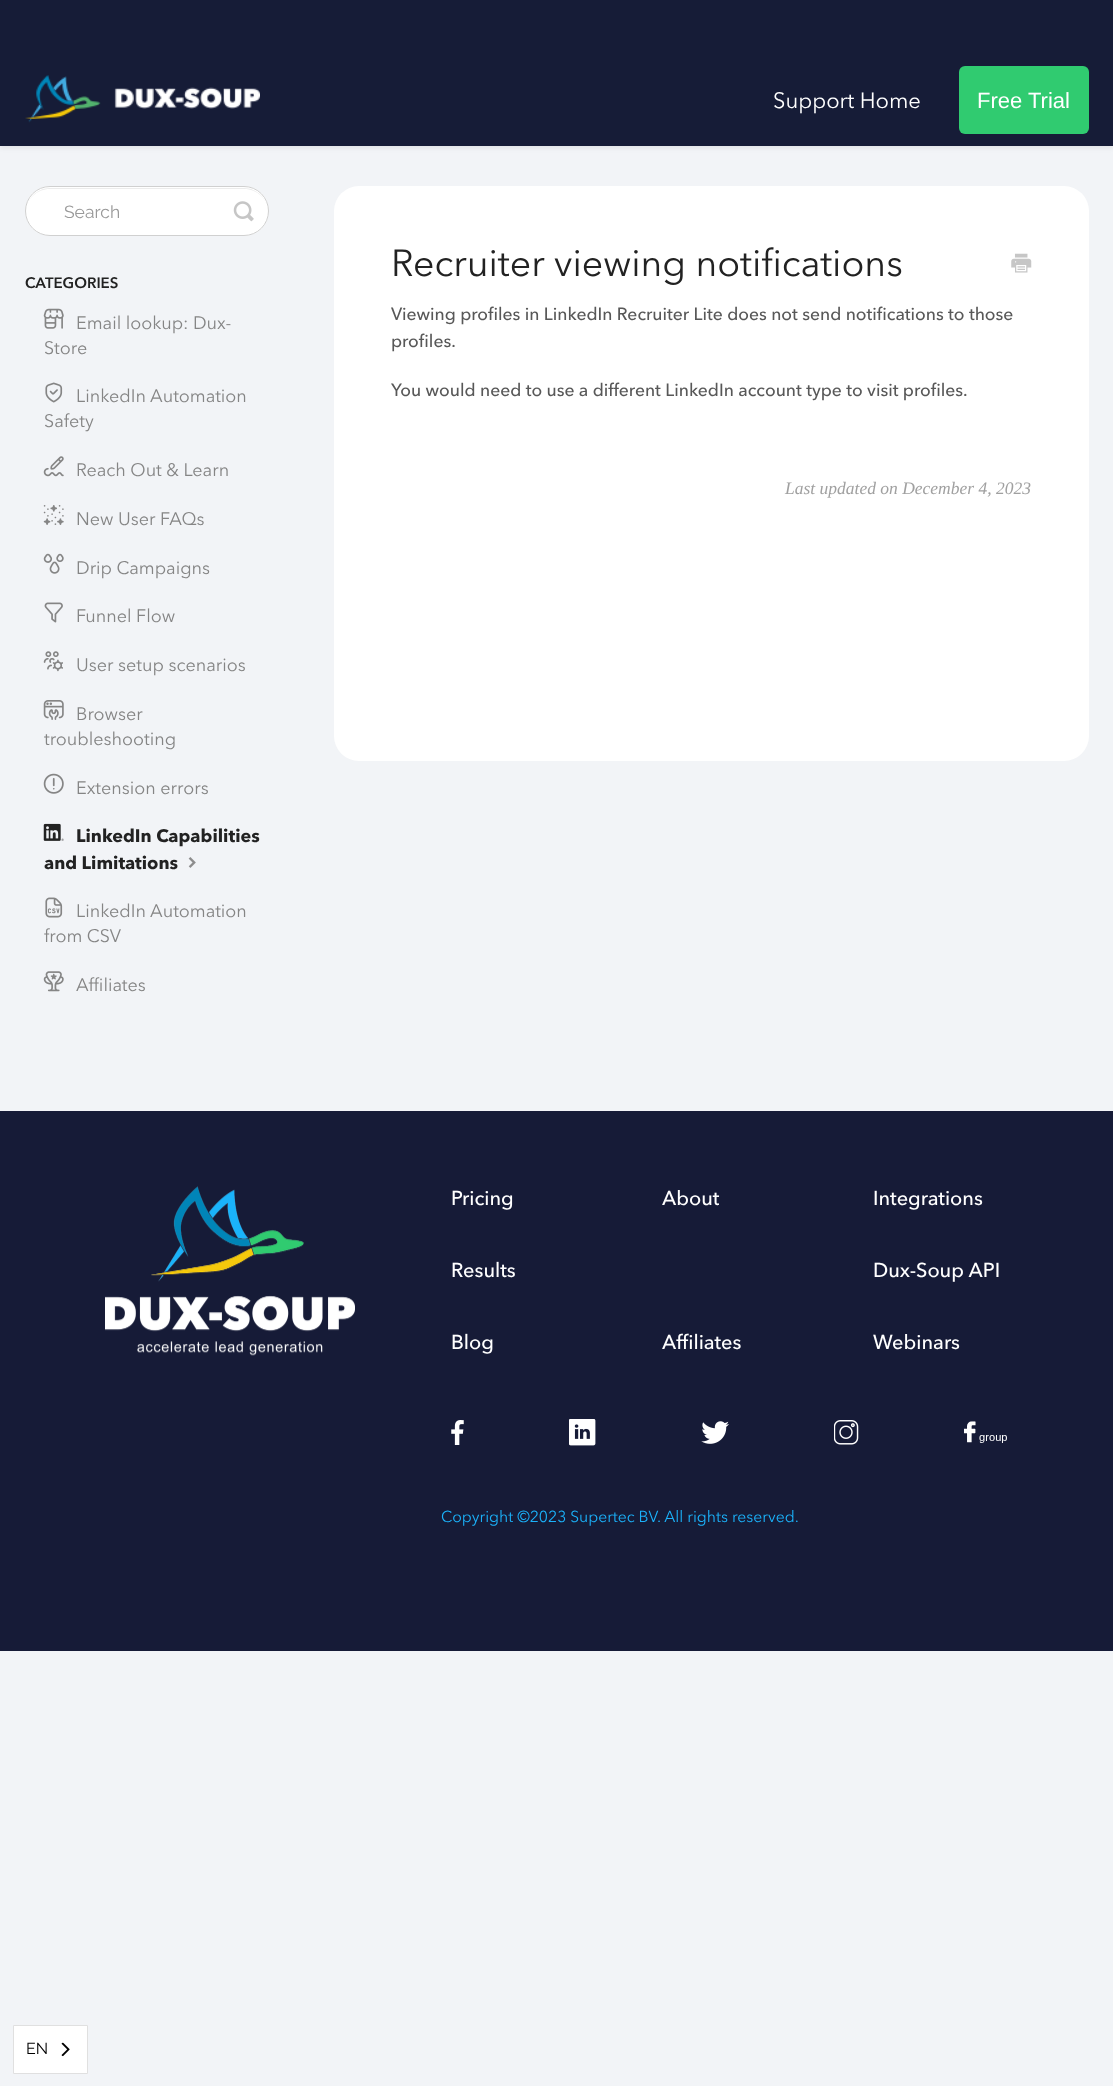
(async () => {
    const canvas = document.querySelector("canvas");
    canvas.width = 1113;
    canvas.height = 2086;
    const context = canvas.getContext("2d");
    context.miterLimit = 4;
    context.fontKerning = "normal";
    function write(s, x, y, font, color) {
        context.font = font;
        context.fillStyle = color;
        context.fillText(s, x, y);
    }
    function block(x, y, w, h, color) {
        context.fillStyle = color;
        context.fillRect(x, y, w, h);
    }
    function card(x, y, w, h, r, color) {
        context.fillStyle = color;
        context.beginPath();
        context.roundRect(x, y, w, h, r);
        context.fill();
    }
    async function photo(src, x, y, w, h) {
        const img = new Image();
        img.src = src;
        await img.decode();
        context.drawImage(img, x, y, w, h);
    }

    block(0, 0, 1113, 2086, "rgb(242, 244, 247)");
    context.fillStyle = "rgba(0, 0, 0, 0.07)";
    context.filter = "blur(2.5px)";
    context.beginPath();
    context.rect(0, 1, 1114, 147);
    context.fill();
    context.filter = "none";
    block(0, 0, 1113, 146, "rgb(22, 28, 55)");
    await photo("media/1.png", 25, 75, 235, 48);
    write("Support Home", 773, 108, "22px Avenir Next", "rgb(255, 255, 255)");
    card(959, 66, 130, 68, 6, "rgb(48, 203, 112)");
    write("Free Trial", 977, 108, "22px Liberation Sans", "rgb(255, 255, 255)");
    card(25, 186, 244, 50, 25, "rgb(255, 255, 255)");
    context.fillStyle = "rgb(236, 236, 236)";
    context.beginPath();
    context.moveTo(50, 189);
    context.lineTo(244, 189);
    context.bezierCurveTo(257, 189, 268, 199, 268, 212);
    context.bezierCurveTo(268, 199, 257, 188, 244, 188);
    context.lineTo(50, 188);
    context.bezierCurveTo(37, 188, 26, 199, 26, 212);
    context.bezierCurveTo(26, 199, 37, 189, 50, 189);
    context.closePath();
    context.fill();
    context.beginPath();
    context.roundRect(25.5, 186.5, 243, 49, 24.5);
    context.strokeStyle = "rgb(208, 208, 208)";
    context.stroke();
    write("Search", 64, 218, "100 17.5px Raleway", "rgb(153, 153, 153)");
    await photo("media/2.png", 233, 201, 21, 21);
    write("CATEGORIES", 25, 288, "600 15px Avenir Next", "rgb(34, 34, 34)");
    await photo("media/3.png", 43, 308, 21, 21);
    write("Email lookup: Dux-", 76, 329, "18px Avenir Next", "rgb(133, 133, 133)");
    write("Store", 44, 354, "18px Avenir Next", "rgb(133, 133, 133)");
    await photo("media/4.png", 45, 382, 18, 21);
    write("LinkedIn Automation", 76, 402, "18px Avenir Next", "rgb(133, 133, 133)");
    write("Safety", 44, 427, "18px Avenir Next", "rgb(133, 133, 133)");
    await photo("media/5.png", 43, 456, 21, 21);
    write("Reach Out & Learn", 76, 476, "18px Avenir Next", "rgb(133, 133, 133)");
    await photo("media/6.png", 43, 505, 21, 20);
    write("New User FAQs", 76, 525, "18px Avenir Next", "rgb(133, 133, 133)");
    await photo("media/7.png", 43, 553, 21, 21);
    write("Drip Campaigns", 76, 574, "18px Avenir Next", "rgb(133, 133, 133)");
    await photo("media/8.png", 44, 602, 19, 21);
    write("Funnel Flow", 76, 622, "18px Avenir Next", "rgb(133, 133, 133)");
    await photo("media/9.png", 43, 651, 20, 21);
    write("User setup scenarios", 76, 671, "18px Avenir Next", "rgb(133, 133, 133)");
    await photo("media/10.png", 43, 700, 21, 20);
    write("Browser", 76, 720, "18px Avenir Next", "rgb(133, 133, 133)");
    write("troubleshooting", 44, 745, "18px Avenir Next", "rgb(133, 133, 133)");
    await photo("media/11.png", 43, 773, 21, 21);
    write("Extension errors", 76, 794, "18px Avenir Next", "rgb(133, 133, 133)");
    await photo("media/12.png", 43, 823, 21, 18);
    write("LinkedIn Capabilities", 76, 842, "bold 18px Avenir Next", "rgb(34, 34, 34)");
    write("and Limitations", 44, 869, "bold 18px Avenir Next", "rgb(34, 34, 34)");
    await photo("media/13.png", 188, 857, 8, 11);
    await photo("media/14.png", 45, 897, 18, 21);
    write("LinkedIn Automation", 76, 917, "18px Avenir Next", "rgb(133, 133, 133)");
    write("from CSV", 44, 942, "18px Avenir Next", "rgb(133, 133, 133)");
    await photo("media/15.png", 43, 971, 21, 21);
    write("Affiliates", 76, 991, "18px Avenir Next", "rgb(133, 133, 133)");
    card(334, 186, 755, 575, 25, "rgb(255, 255, 255)");
    write("Recruiter viewing notifications", 391, 276, "37.5px Avenir Next", "rgb(34, 34, 34)");
    await photo("media/16.png", 1011, 253, 21, 20);
    write("Viewing profiles in LinkedIn Recruiter Lite does not send notifications to those", 391, 320, "500 17.5px Avenir Next", "rgb(88, 88, 88)");
    write("profiles.", 391, 347, "500 17.5px Avenir Next", "rgb(88, 88, 88)");
    write("You would need to use a different LinkedIn account type to visit profiles.", 391, 396, "500 17.5px Avenir Next", "rgb(88, 88, 88)");
    write("Last updated on December 4, 2023", 785, 494, "italic 17.5px Liberation Serif", "rgb(160, 160, 160)");
    block(0, 1111, 1113, 540, "rgb(22, 27, 55)");
    await photo("media/17.png", 105, 1186, 250, 170);
    write("Pricing", 451, 1205, "500 20px Avenir Next", "rgb(255, 255, 255)");
    write("Results", 451, 1277, "500 20px Avenir Next", "rgb(255, 255, 255)");
    write("Blog", 451, 1349, "500 20px Avenir Next", "rgb(255, 255, 255)");
    write("About", 662, 1205, "500 20px Avenir Next", "rgb(255, 255, 255)");
    write("Affiliates", 662, 1349, "500 20px Avenir Next", "rgb(255, 255, 255)");
    write("Integrations", 873, 1205, "500 20px Avenir Next", "rgb(255, 255, 255)");
    write("Dux-Soup API", 873, 1277, "500 20px Avenir Next", "rgb(255, 255, 255)");
    write("Webinars", 873, 1349, "500 20px Avenir Next", "rgb(255, 255, 255)");
    await photo("media/18.png", 451, 1420, 13, 25);
    await photo("media/19.png", 569, 1419, 27, 27);
    await photo("media/20.png", 701, 1421, 28, 23);
    await photo("media/21.png", 834, 1420, 25, 25);
    await photo("media/22.png", 964, 1421, 43, 22);
    write("Copyright ©2023 Supertec BV. All rights reserved.", 441, 1522, "15.75px Avenir Next", "rgb(27, 178, 250)");
    context.fillStyle = "rgb(255, 255, 255)";
    context.beginPath();
    context.rect(13.5, 2025.5, 74, 48);
    context.fill();
    context.strokeStyle = "rgb(224, 224, 224)";
    context.stroke();
    write("EN", 26, 2054, "100 16px Raleway", "rgb(0, 0, 0)");
    await photo("media/23.png", 61, 2042, 9, 15);
})();
